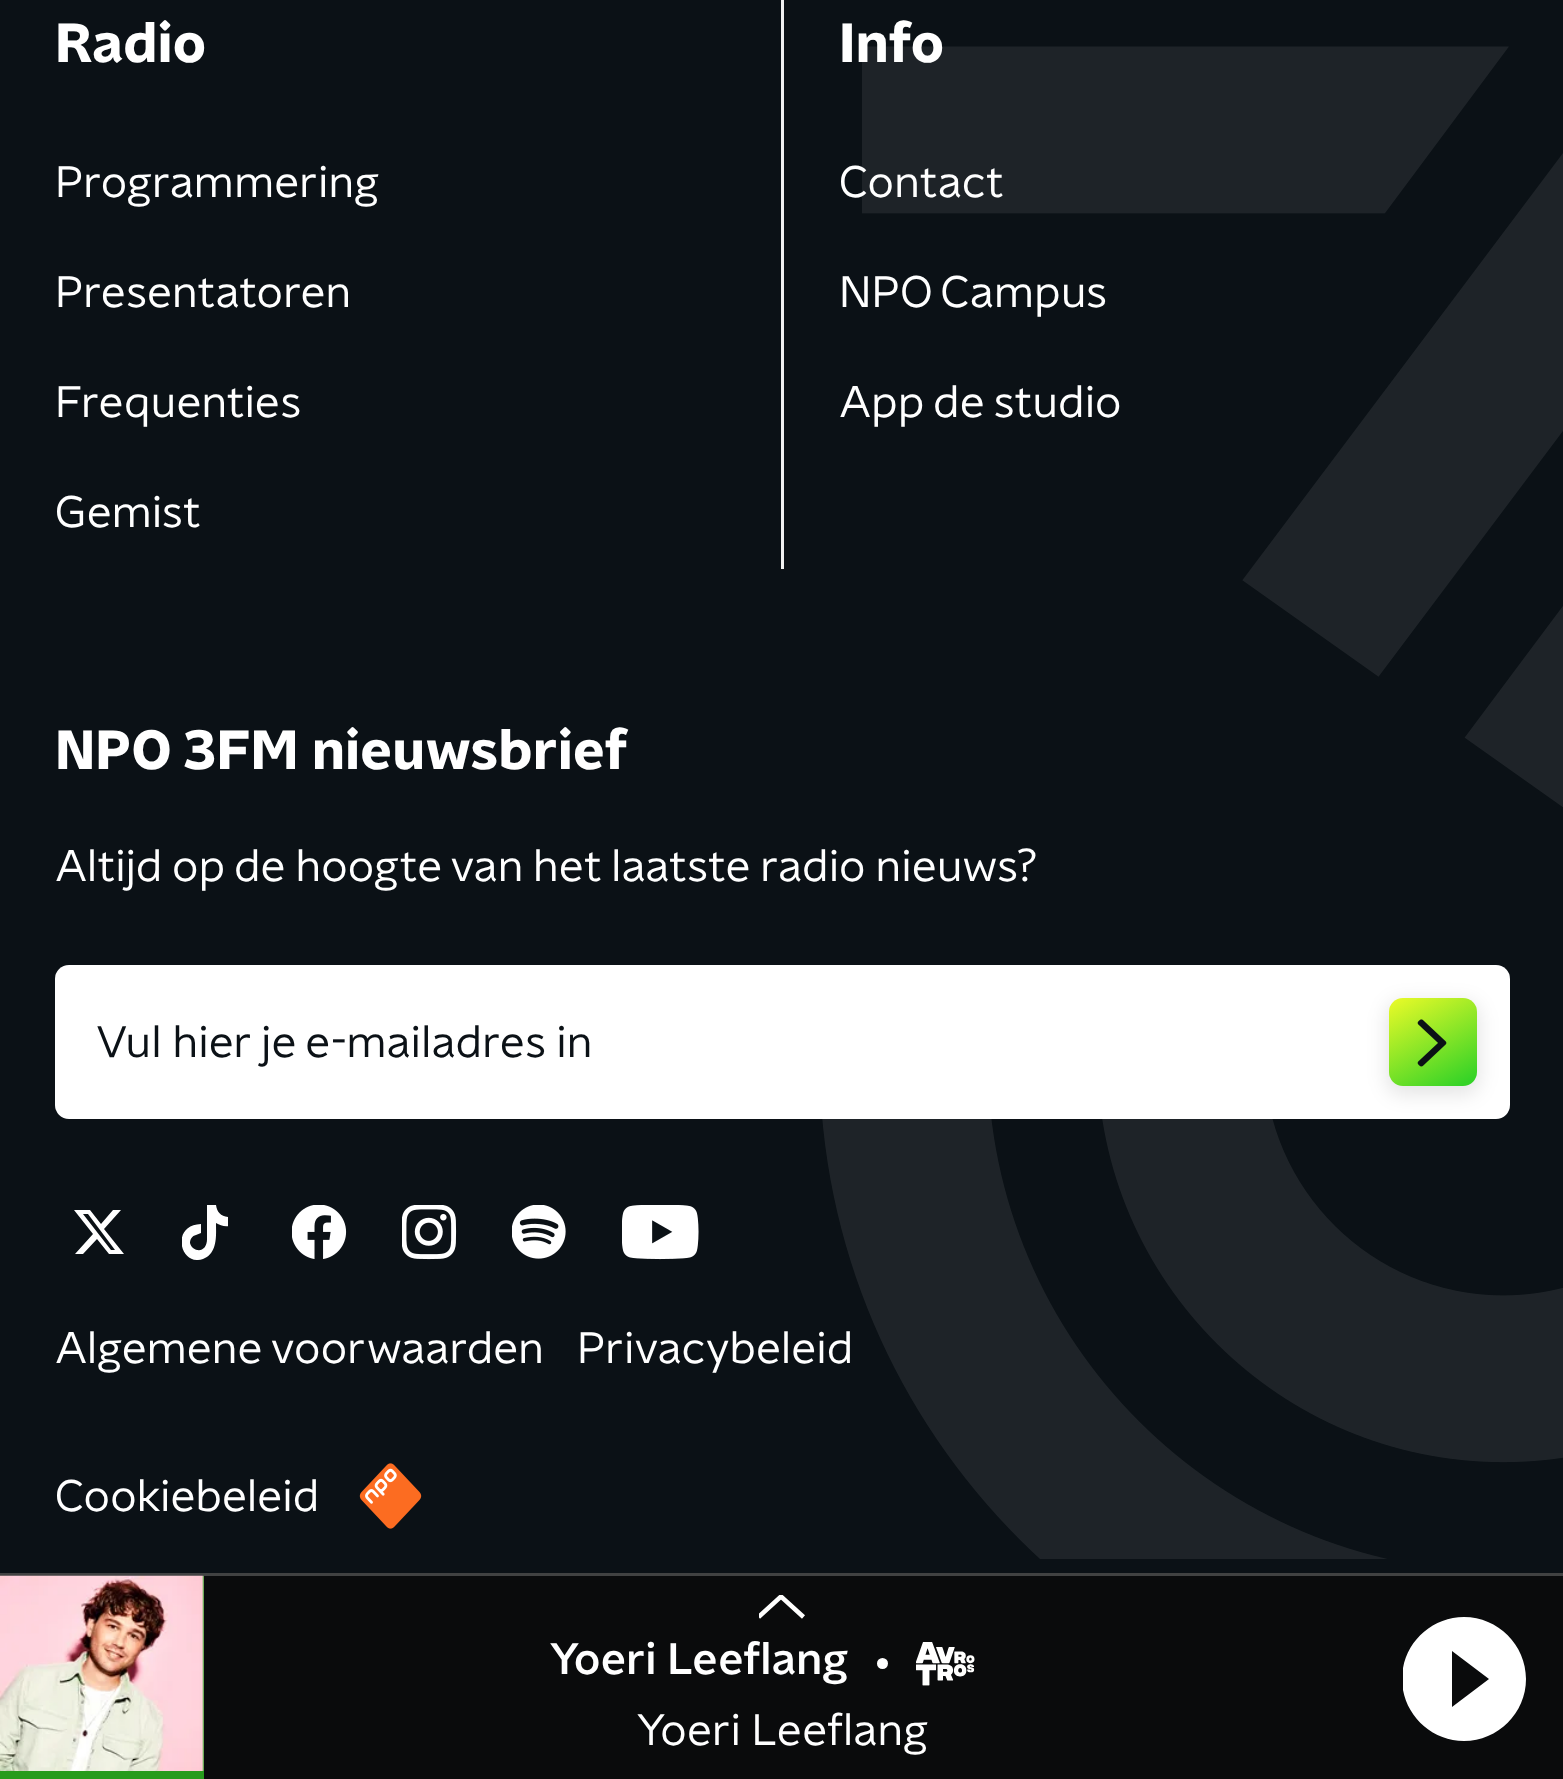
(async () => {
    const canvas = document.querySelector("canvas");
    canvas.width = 1563;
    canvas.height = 1779;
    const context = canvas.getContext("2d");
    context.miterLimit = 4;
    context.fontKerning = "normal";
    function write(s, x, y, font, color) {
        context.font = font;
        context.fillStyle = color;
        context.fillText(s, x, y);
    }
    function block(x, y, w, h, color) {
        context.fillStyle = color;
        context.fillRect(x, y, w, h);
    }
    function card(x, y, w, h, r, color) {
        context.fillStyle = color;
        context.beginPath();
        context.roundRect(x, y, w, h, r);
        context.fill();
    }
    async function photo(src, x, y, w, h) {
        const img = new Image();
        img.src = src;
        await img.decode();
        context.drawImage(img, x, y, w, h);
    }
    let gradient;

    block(0, 0, 1563, 1779, "rgb(11, 17, 22)");
    block(781, 0, 3, 569, "rgb(241, 241, 241)");
    write("Radio", 55, 62, "bold 55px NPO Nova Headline", "rgb(255, 255, 255)");
    write("Programmering", 55, 197, "44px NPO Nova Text", "rgb(255, 255, 255)");
    write("Presentatoren", 55, 307, "44px NPO Nova Text", "rgb(255, 255, 255)");
    write("Frequenties", 55, 417, "44px NPO Nova Text", "rgb(255, 255, 255)");
    write("Gemist", 55, 527, "44px NPO Nova Text", "rgb(255, 255, 255)");
    await photo("media/2.png", 822, 46, 741, 1513);
    write("Info", 839, 62, "bold 55px NPO Nova Headline", "rgb(255, 255, 255)");
    write("Contact", 839, 197, "44px NPO Nova Text", "rgb(255, 255, 255)");
    write("NPO Campus", 839, 307, "44px NPO Nova Text", "rgb(255, 255, 255)");
    write("App de studio", 839, 417, "44px NPO Nova Text", "rgb(255, 255, 255)");
    write("NPO 3FM nieuwsbrief", 55, 769, "bold 55px NPO Nova Headline", "rgb(255, 255, 255)");
    write("Altijd op de hoogte van het laatste radio nieuws?", 55, 881, "44px NPO Nova Text", "rgb(255, 255, 255)");
    card(55, 965, 1455, 154, 14, "rgb(255, 255, 255)");
    write("Vul hier je e-mailadres in", 96, 1057, "44px NPO Nova Text", "rgb(11, 17, 22)");
    context.fillStyle = "rgba(0, 0, 0, 0.1)";
    context.filter = "blur(9.5px)";
    context.beginPath();
    context.roundRect(1386, 1001, 94, 94, 17);
    context.fill();
    context.filter = "none";
    gradient = context.createLinearGradient(1398, 980, 1462, 1095);
    gradient.addColorStop(0, "rgb(255, 255, 40)");
    gradient.addColorStop(0.93, "rgb(53, 211, 39)");
    context.fillStyle = gradient;
    context.beginPath();
    context.roundRect(1389, 998, 88, 88, 14);
    context.fill();
    await photo("media/1.png", 1417, 1019, 30, 48);
    context.fillStyle = "rgb(255, 255, 255)";
    context.beginPath();
    context.moveTo(113, 1210);
    context.lineTo(121, 1210);
    context.lineTo(104, 1229);
    context.lineTo(124, 1254);
    context.lineTo(109, 1254);
    context.lineTo(97, 1239);
    context.lineTo(83, 1254);
    context.lineTo(75, 1254);
    context.lineTo(93, 1234);
    context.lineTo(74, 1210);
    context.lineTo(90, 1210);
    context.lineTo(101, 1224);
    context.closePath();
    context.moveTo(111, 1250);
    context.lineTo(115, 1250);
    context.lineTo(88, 1214);
    context.lineTo(83, 1214);
    context.closePath();
    context.fill();
    context.save();
    context.beginPath();
    context.rect(182, 1205, 46, 55);
    context.clip();
    context.beginPath();
    context.moveTo(216, 1205);
    context.bezierCurveTo(217, 1212, 221, 1217, 229, 1217);
    context.lineTo(229, 1226);
    context.bezierCurveTo(224, 1227, 220, 1225, 216, 1223);
    context.bezierCurveTo(216, 1235, 218, 1253, 203, 1259);
    context.bezierCurveTo(180, 1267, 170, 1225, 201, 1224);
    context.lineTo(201, 1233);
    context.lineTo(196, 1235);
    context.bezierCurveTo(192, 1236, 190, 1239, 190, 1243);
    context.bezierCurveTo(192, 1252, 208, 1255, 207, 1237);
    context.lineTo(207, 1205);
    context.closePath();
    context.fill("evenodd");
    context.restore();
    await photo("media/3.png", 292, 1205, 55, 54);
    await photo("media/4.png", 402, 1205, 55, 55);
    await photo("media/5.png", 512, 1205, 54, 54);
    await photo("media/6.png", 622, 1205, 77, 55);
    write("Algemene voorwaarden", 55, 1363, "44px NPO Nova Text", "rgb(255, 255, 255)");
    write("Privacybeleid", 577, 1363, "44px NPO Nova Text", "rgb(255, 255, 255)");
    write("Cookiebeleid", 55, 1511, "44px NPO Nova Text", "rgb(255, 255, 255)");
    await photo("media/7.png", 359, 1463, 63, 66);
    block(204, 1576, 1359, 203, "rgb(10, 11, 12)");
    block(0, 1573, 1563, 3, "rgb(65, 66, 66)");
    block(200, 1576, 4, 195, "rgb(39, 155, 28)");
    await photo("media/8.png", 0, 1575, 204, 196);
    block(0, 1771, 204, 8, "rgb(39, 155, 28)");
    context.save();
    context.beginPath();
    context.rect(759, 1595, 50, 25);
    context.clip();
    context.beginPath();
    context.moveTo(803.5, 1617);
    context.lineTo(781, 1596.5);
    context.lineTo(758.5, 1617);
    context.strokeStyle = "rgb(255, 255, 255)";
    context.lineWidth = 4.5;
    context.stroke();
    context.restore();
    write("Yoeri Leeflang", 550, 1674, "500 44px NPO Nova Text", "rgb(255, 255, 255)");
    context.beginPath();
    context.arc(882.5, 1663.5, 5.5, 0, Math.PI * 2);
    context.fill();
    await photo("media/9.png", 916, 1642, 59, 44);
    write("Yoeri Leeflang", 637, 1745, "44px NPO Nova Text", "rgb(255, 255, 255)");
    context.save();
    context.beginPath();
    context.rect(1403, 1617, 123, 124);
    context.clip();
    context.beginPath();
    context.moveTo(1464, 1617);
    context.bezierCurveTo(1430, 1617, 1402, 1645, 1402, 1679);
    context.bezierCurveTo(1402, 1713, 1430, 1741, 1464, 1741);
    context.bezierCurveTo(1498, 1741, 1526, 1713, 1526, 1679);
    context.bezierCurveTo(1526, 1645, 1498, 1617, 1464, 1617);
    context.closePath();
    context.moveTo(1452, 1707);
    context.lineTo(1452, 1651);
    context.lineTo(1489, 1679);
    context.closePath();
    context.fill();
    context.restore();
})();
